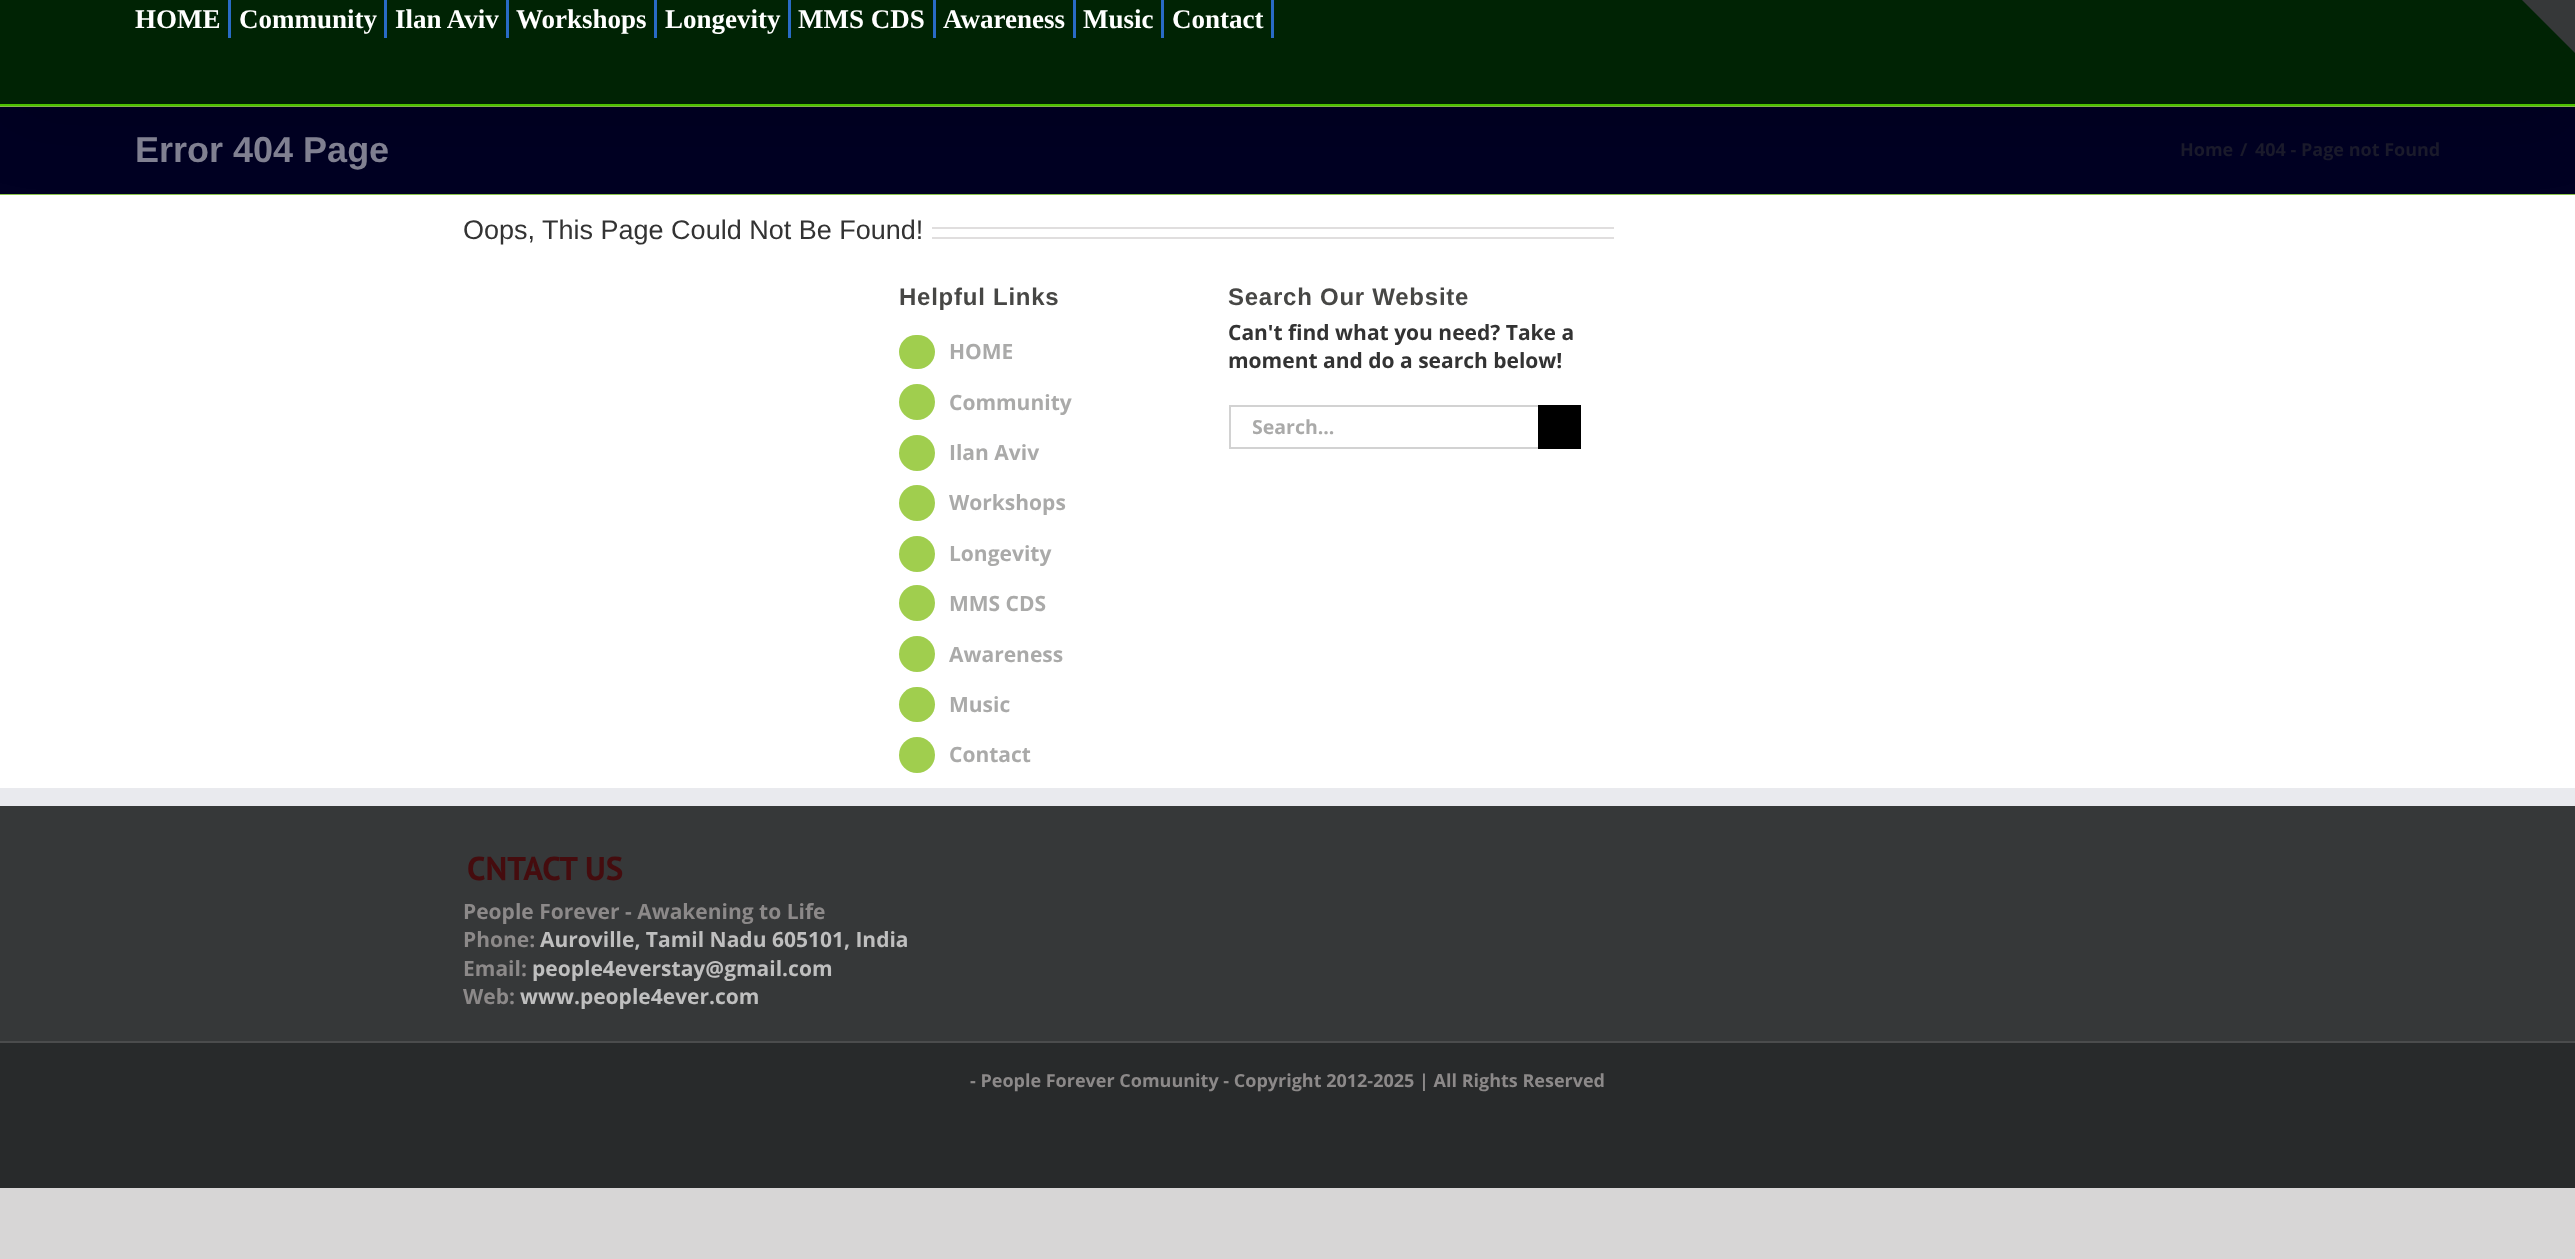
(async () => {
    const canvas = document.querySelector("canvas");
    canvas.width = 2575;
    canvas.height = 1259;
    const context = canvas.getContext("2d");
    context.miterLimit = 4;
    context.fontKerning = "normal";
    function write(s, x, y, font, color) {
        context.font = font;
        context.fillStyle = color;
        context.fillText(s, x, y);
    }
    function block(x, y, w, h, color) {
        context.fillStyle = color;
        context.fillRect(x, y, w, h);
    }
    function card(x, y, w, h, r, color) {
        context.fillStyle = color;
        context.beginPath();
        context.roundRect(x, y, w, h, r);
        context.fill();
    }

    block(0, 0, 2575, 1259, "rgb(215, 214, 214)");
    block(0, 107, 2575, 87, "rgb(1, 1, 35)");
    block(0, 106, 2575, 1, "rgb(139, 195, 74)");
    block(0, 194, 2575, 1, "rgb(139, 195, 74)");
    block(0, 195, 2575, 593, "rgb(255, 255, 255)");
    block(932, 227, 682, 2, "rgb(224, 222, 222)");
    context.fillStyle = "rgba(0, 0, 0, 0.14)";
    context.filter = "blur(37.5px)";
    context.beginPath();
    context.rect(3, 18, 2570, 99);
    context.fill();
    context.filter = "none";
    block(0, 0, 2575, 104, "rgb(0, 35, 4)");
    block(0, 104, 2575, 2, "rgb(77, 193, 0)");
    block(228, 0, 3, 38, "rgb(41, 107, 197)");
    write("HOME", 135, 28, "bold 27px Liberation Serif", "rgb(255, 255, 255)");
    block(384, 0, 3, 38, "rgb(41, 107, 197)");
    write("Community", 239, 28, "bold 27px Liberation Serif", "rgb(255, 255, 255)");
    block(506, 0, 3, 38, "rgb(41, 107, 197)");
    write("Ilan Aviv", 395, 28, "bold 27px Liberation Serif", "rgb(255, 255, 255)");
    block(654, 0, 3, 38, "rgb(41, 107, 197)");
    write("Workshops", 516, 28, "bold 27px Liberation Serif", "rgb(255, 255, 255)");
    block(788, 0, 3, 38, "rgb(41, 107, 197)");
    write("Longevity", 665, 28, "bold 27px Liberation Serif", "rgb(255, 255, 255)");
    block(933, 0, 3, 38, "rgb(41, 107, 197)");
    write("MMS CDS", 798, 28, "bold 27px Liberation Serif", "rgb(255, 255, 255)");
    block(1073, 0, 3, 38, "rgb(41, 107, 197)");
    write("Awareness", 943, 28, "bold 27px Liberation Serif", "rgb(255, 255, 255)");
    block(1161, 0, 3, 38, "rgb(41, 107, 197)");
    write("Music", 1083, 28, "bold 27px Liberation Serif", "rgb(255, 255, 255)");
    block(1271, 0, 3, 38, "rgb(41, 107, 197)");
    write("Contact", 1172, 28, "bold 27px Liberation Serif", "rgb(255, 255, 255)");
    context.fillStyle = "rgb(54, 56, 57)";
    context.beginPath();
    context.moveTo(2522, 0);
    context.lineTo(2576, 0);
    context.lineTo(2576, 54);
    context.closePath();
    context.fill();
    write("Error 404 Page", 135, 162, "bold 36px Liberation Sans", "rgb(128, 128, 145)");
    write("Home", 2180, 156, "bold 18px Open Sans", "rgb(26, 26, 43)");
    write("/", 2240, 156, "bold 18px Open Sans", "rgb(26, 26, 43)");
    write("404 - Page not Found", 2255, 156, "bold 18px Open Sans", "rgb(26, 26, 43)");
    write("Oops, This Page Could Not Be Found!", 463, 239, "27px Liberation Sans", "rgb(51, 51, 51)");
    block(932, 237, 682, 2, "rgb(224, 222, 222)");
    context.letterSpacing = "0.75px";
    write("Helpful Links", 899, 305, "bold 24px Liberation Sans", "rgb(71, 71, 69)");
    card(899, 335, 36, 34, 17, "rgb(160, 206, 78)");
    context.letterSpacing = "0px";
    write("HOME", 949, 359, "bold 21px Open Sans", "rgb(170, 170, 169)");
    context.fillStyle = "rgb(160, 206, 78)";
    context.beginPath();
    context.arc(917, 402, 18, 0, Math.PI * 2);
    context.fill();
    write("Community", 949, 410, "bold 21px Open Sans", "rgb(170, 170, 169)");
    context.fillStyle = "rgb(160, 206, 78)";
    context.beginPath();
    context.arc(917, 453, 18, 0, Math.PI * 2);
    context.fill();
    write("Ilan Aviv", 949, 460, "bold 21px Open Sans", "rgb(170, 170, 169)");
    context.fillStyle = "rgb(160, 206, 78)";
    context.beginPath();
    context.arc(917, 503, 18, 0, Math.PI * 2);
    context.fill();
    write("Workshops", 949, 510, "bold 21px Open Sans", "rgb(170, 170, 169)");
    context.fillStyle = "rgb(160, 206, 78)";
    context.beginPath();
    context.arc(917, 554, 18, 0, Math.PI * 2);
    context.fill();
    write("Longevity", 949, 561, "bold 21px Open Sans", "rgb(170, 170, 169)");
    context.fillStyle = "rgb(160, 206, 78)";
    context.beginPath();
    context.arc(917, 603, 18, 0, Math.PI * 2);
    context.fill();
    write("MMS CDS", 949, 611, "bold 21px Open Sans", "rgb(170, 170, 169)");
    context.fillStyle = "rgb(160, 206, 78)";
    context.beginPath();
    context.arc(917, 654, 18, 0, Math.PI * 2);
    context.fill();
    write("Awareness", 949, 662, "bold 21px Open Sans", "rgb(170, 170, 169)");
    card(899, 687, 36, 35, 17.5, "rgb(160, 206, 78)");
    write("Music", 949, 712, "bold 21px Open Sans", "rgb(170, 170, 169)");
    context.fillStyle = "rgb(160, 206, 78)";
    context.beginPath();
    context.arc(917, 755, 18, 0, Math.PI * 2);
    context.fill();
    write("Contact", 949, 762, "bold 21px Open Sans", "rgb(170, 170, 169)");
    context.letterSpacing = "0.75px";
    write("Search Our Website", 1228, 305, "bold 24px Liberation Sans", "rgb(71, 71, 69)");
    context.letterSpacing = "0px";
    write("Can't find what you need? Take a", 1228, 340, "bold 21px Open Sans", "rgb(51, 51, 51)");
    write("moment and do a search below!", 1228, 368, "bold 21px Open Sans", "rgb(51, 51, 51)");
    block(1229, 405, 309, 2, "rgb(210, 210, 210)");
    block(1229, 447, 309, 2, "rgb(210, 210, 210)");
    block(1229, 405, 2, 44, "rgb(210, 210, 210)");
    context.save();
    context.beginPath();
    context.rect(1253, 413, 243, 27);
    context.clip();
    write("Search...", 1252, 434, "bold 19.5px Open Sans", "rgb(170, 170, 169)");
    context.restore();
    block(1538, 405, 43, 44, "rgb(0, 0, 0)");
    block(0, 806, 2575, 235, "rgb(54, 56, 57)");
    block(0, 788, 2575, 18, "rgb(233, 234, 238)");
    write("CNTACT US", 467, 880, "bold 33px PT Sans", "rgb(69, 12, 14)");
    write("People Forever - Awakening to Life", 463, 919, "bold 21px Open Sans", "rgb(140, 137, 137)");
    write("Phone:", 463, 947, "bold 21px Open Sans", "rgb(140, 137, 137)");
    write("Auroville, Tamil Nadu 605101, India", 540, 947, "bold 21px Open Sans", "rgb(191, 191, 191)");
    write("Email:", 463, 976, "bold 21px Open Sans", "rgb(140, 137, 137)");
    write("people4everstay@gmail.com", 532, 976, "bold 21px Open Sans", "rgb(191, 191, 191)");
    write("Web:", 463, 1004, "bold 21px Open Sans", "rgb(140, 137, 137)");
    write("www.people4ever.com", 520, 1004, "bold 21px Open Sans", "rgb(191, 191, 191)");
    block(0, 1043, 2575, 145, "rgb(40, 42, 43)");
    block(0, 1041, 2575, 2, "rgb(75, 76, 77)");
    write("- People Forever Comuunity - Copyright 2012-2025 | All Rights Reserved", 970, 1087, "bold 18px Open Sans", "rgb(140, 137, 137)");
})();
